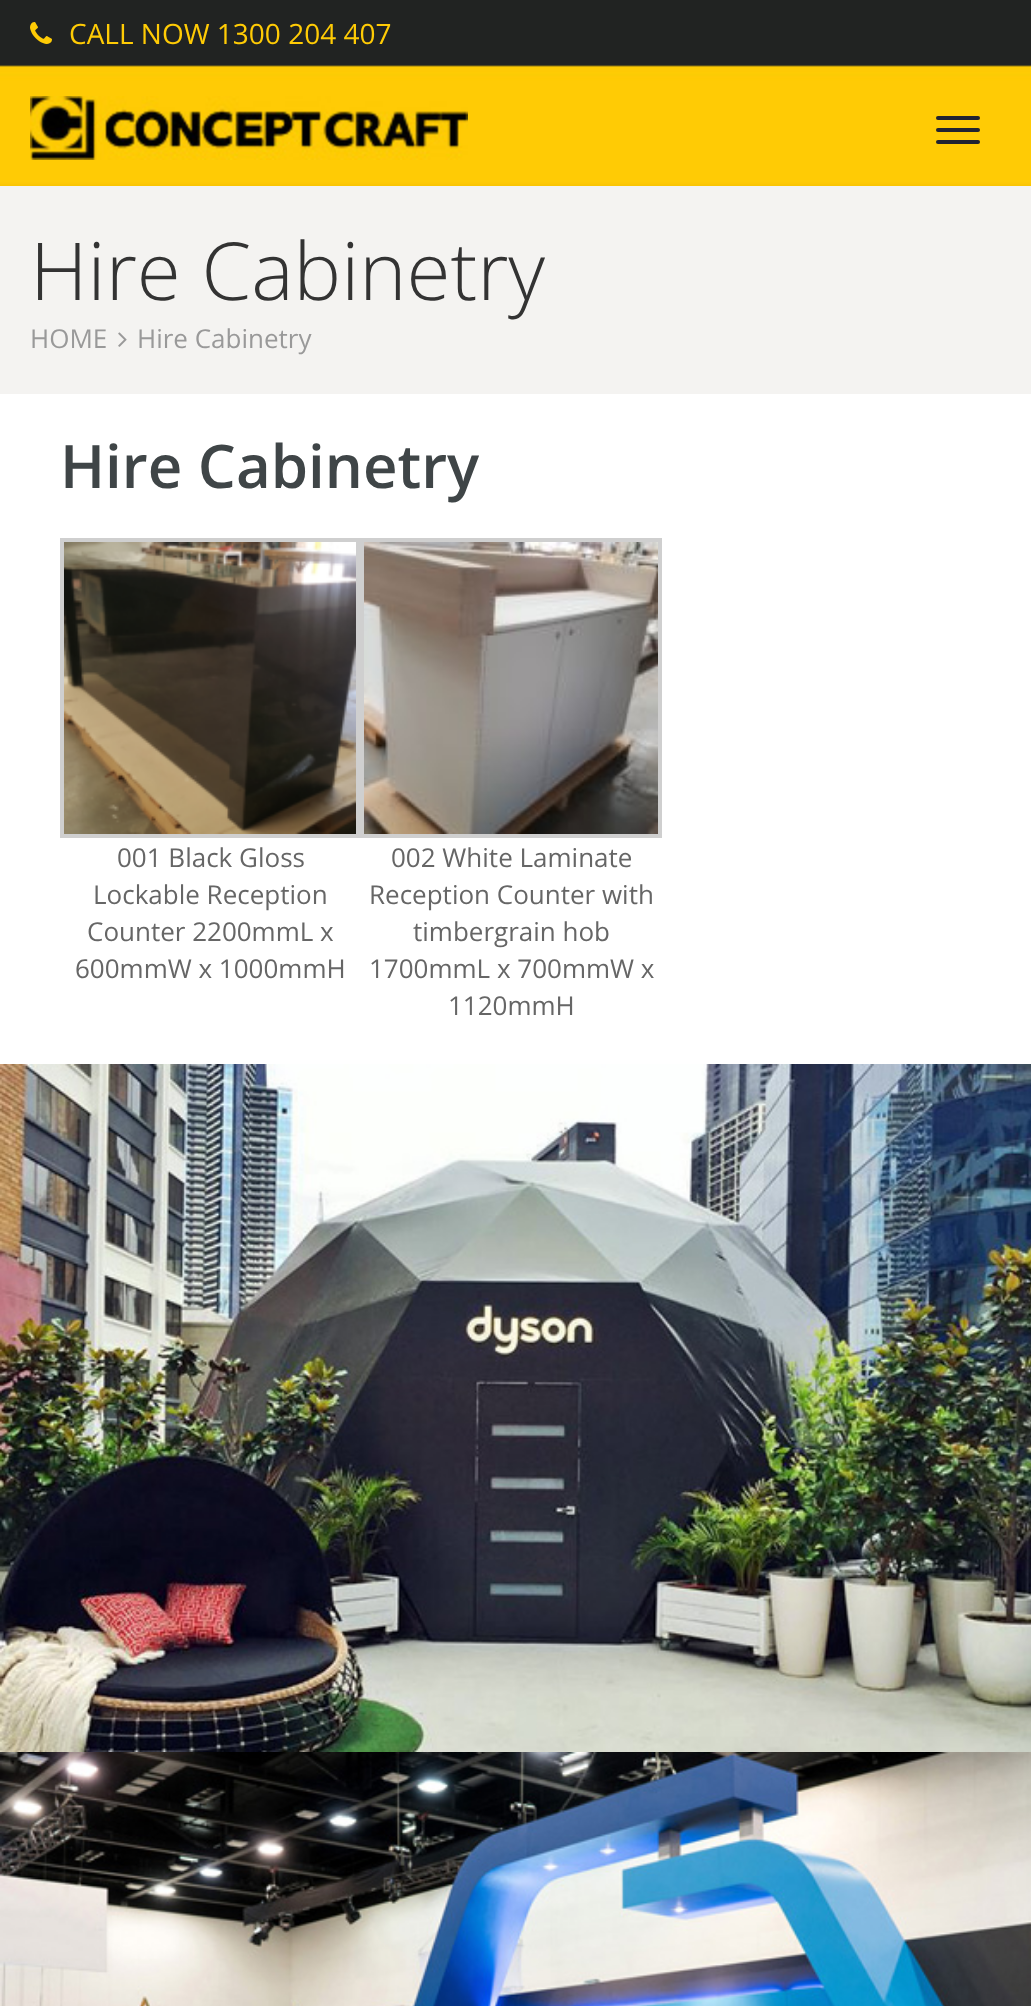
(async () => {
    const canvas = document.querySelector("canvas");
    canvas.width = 1031;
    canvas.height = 2006;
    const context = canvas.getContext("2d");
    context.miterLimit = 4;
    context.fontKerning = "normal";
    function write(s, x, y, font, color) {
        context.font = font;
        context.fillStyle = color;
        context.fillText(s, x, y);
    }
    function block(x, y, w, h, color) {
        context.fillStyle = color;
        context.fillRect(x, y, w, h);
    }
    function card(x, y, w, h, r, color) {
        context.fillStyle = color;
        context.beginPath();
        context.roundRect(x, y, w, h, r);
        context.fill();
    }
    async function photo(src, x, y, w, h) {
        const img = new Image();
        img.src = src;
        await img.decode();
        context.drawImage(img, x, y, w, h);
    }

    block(0, 0, 1031, 2006, "rgb(244, 243, 241)");
    await photo("media/1.png", 0, 0, 1031, 186);
    await photo("media/2.png", 30, 22, 22, 22);
    write("CALL NOW 1300 204 407", 69, 44, "28px Open Sans", "rgb(255, 203, 5)");
    await photo("media/3.png", 30, 96, 438, 64);
    card(936, 116, 44, 4, 2, "rgb(33, 35, 50)");
    card(936, 128, 44, 4, 2, "rgb(33, 35, 50)");
    card(936, 140, 44, 4, 2, "rgb(33, 35, 50)");
    write("Hire Cabinetry", 30, 300, "300 80px Open Sans", "rgb(51, 51, 51)");
    write("HOME", 30, 348, "26px Open Sans", "rgb(153, 153, 153)");
    await photo("media/4.png", 118, 332, 9, 15);
    write("Hire Cabinetry", 137, 348, "26px Open Sans", "rgb(153, 153, 153)");
    block(0, 394, 1031, 670, "rgb(255, 255, 255)");
    write("Hire Cabinetry", 60, 488, "600 60px Open Sans", "rgb(63, 69, 71)");
    context.strokeStyle = "rgb(207, 207, 207)";
    context.lineWidth = 4;
    context.strokeRect(62, 540, 296, 296);
    await photo("media/5.png", 64, 542, 292, 292);
    write("001 Black Gloss", 117, 867, "26px Open Sans", "rgb(102, 102, 102)");
    write("Lockable Reception", 93, 904, "26px Open Sans", "rgb(102, 102, 102)");
    write("Counter 2200mmL x", 87, 941, "26px Open Sans", "rgb(102, 102, 102)");
    write("600mmW x 1000mmH", 75, 978, "26px Open Sans", "rgb(102, 102, 102)");
    context.strokeRect(362, 540, 298, 296);
    await photo("media/6.png", 364, 542, 294, 292);
    write("002 White Laminate", 391, 867, "26px Open Sans", "rgb(102, 102, 102)");
    write("Reception Counter with", 369, 904, "26px Open Sans", "rgb(102, 102, 102)");
    write("timbergrain hob", 413, 941, "26px Open Sans", "rgb(102, 102, 102)");
    write("1700mmL x 700mmW x", 369, 978, "26px Open Sans", "rgb(102, 102, 102)");
    write("1120mmH", 448, 1015, "26px Open Sans", "rgb(102, 102, 102)");
    await photo("media/7.png", 0, 1064, 1031, 688);
    await photo("media/8.png", 0, 1752, 1031, 254);
})();
